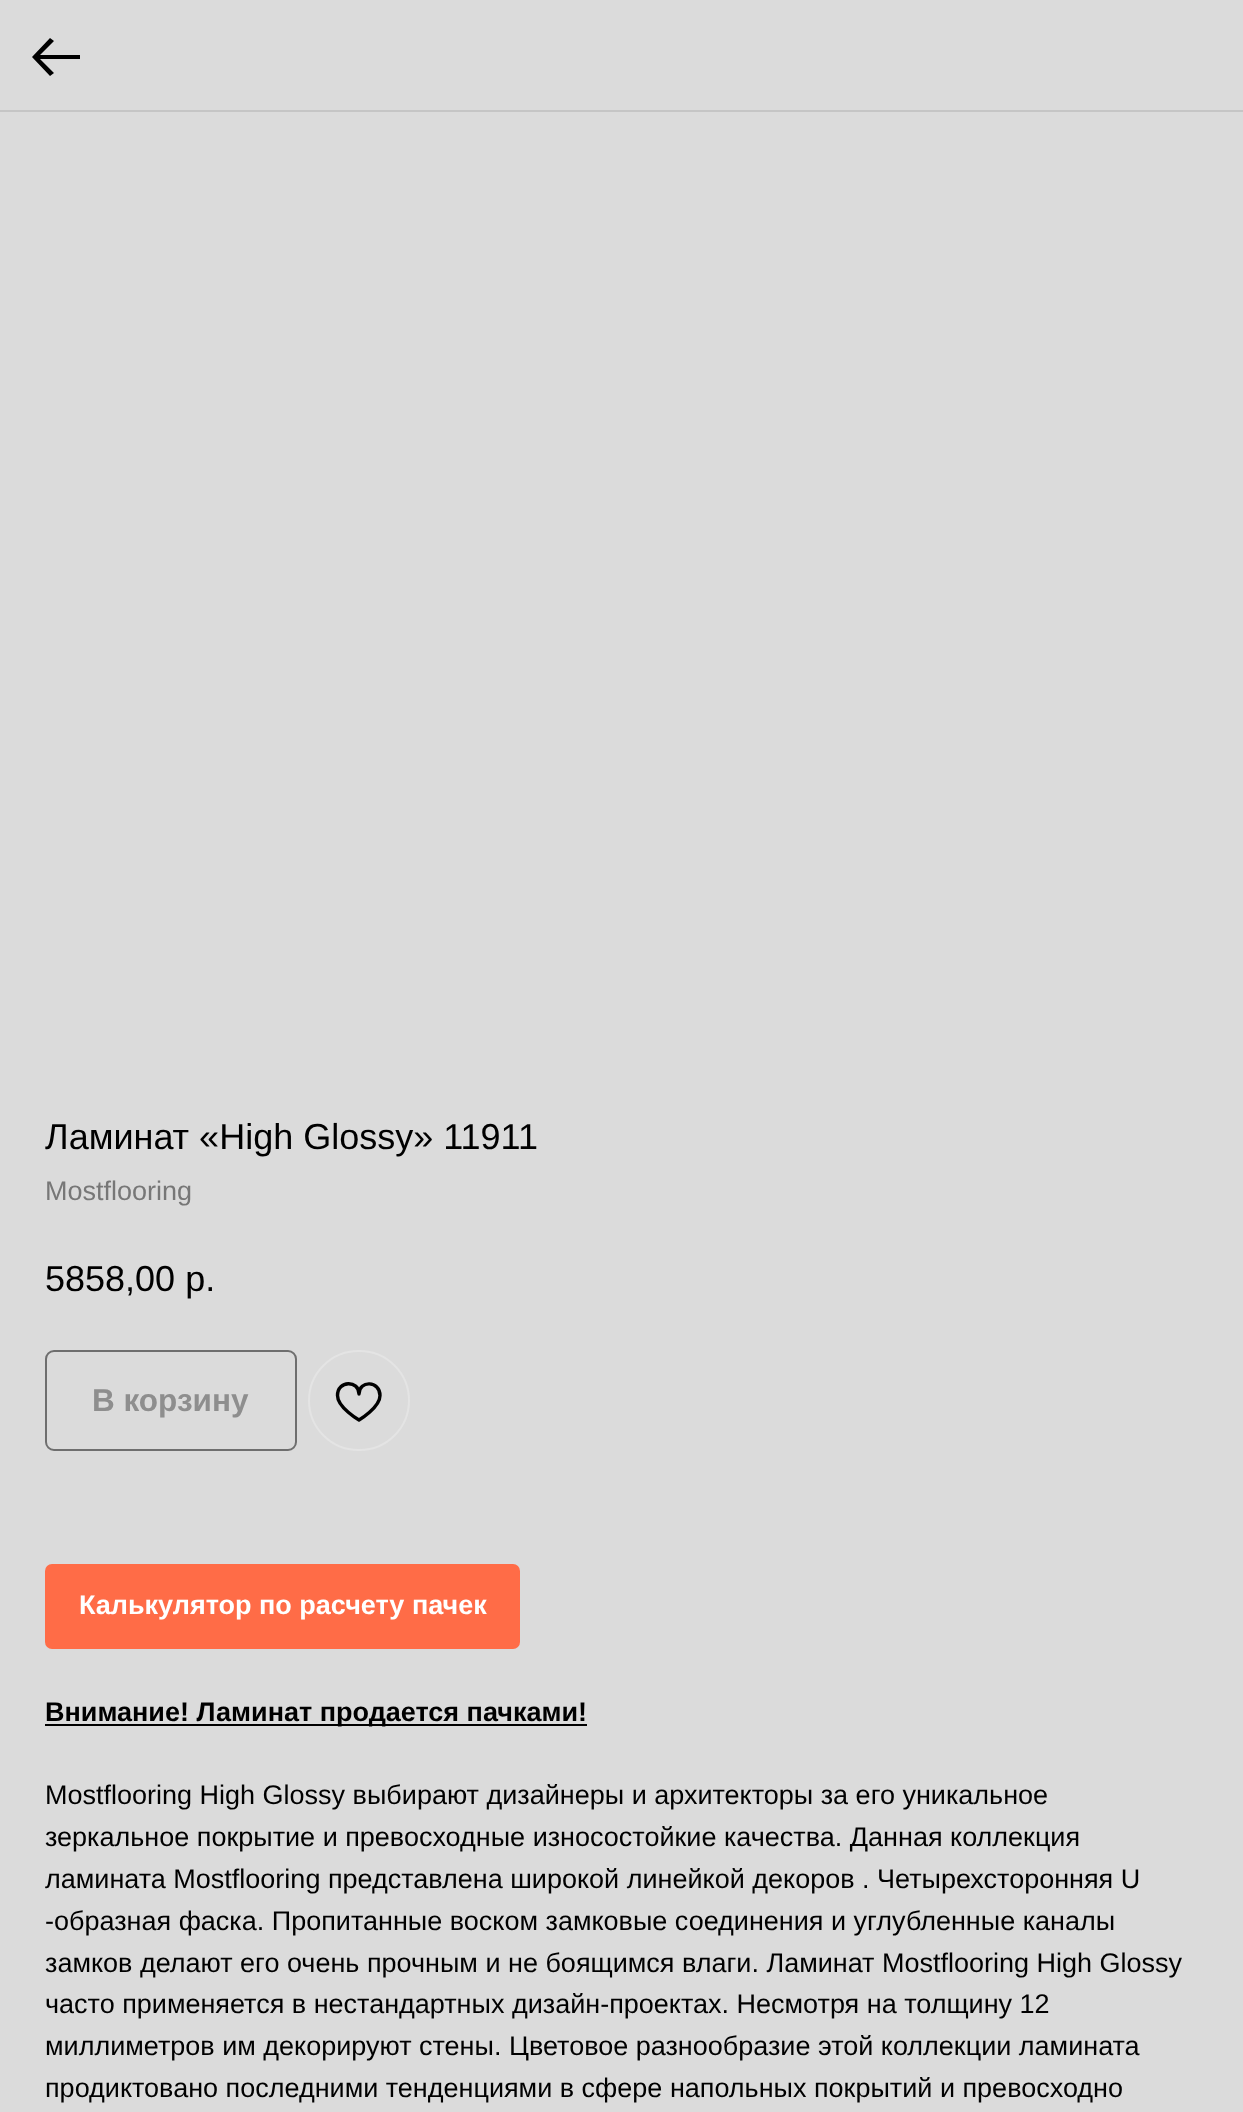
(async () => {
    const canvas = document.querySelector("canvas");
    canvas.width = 1243;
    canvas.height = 2112;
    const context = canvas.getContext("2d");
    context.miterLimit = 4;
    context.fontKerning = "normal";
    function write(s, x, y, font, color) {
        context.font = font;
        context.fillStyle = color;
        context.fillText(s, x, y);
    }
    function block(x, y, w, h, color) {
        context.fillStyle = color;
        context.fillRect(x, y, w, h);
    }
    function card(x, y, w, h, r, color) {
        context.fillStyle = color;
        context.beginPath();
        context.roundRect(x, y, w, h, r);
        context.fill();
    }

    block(0, 0, 1243, 2112, "rgb(219, 219, 219)");
    block(0, 110, 1243, 2, "rgb(197, 197, 197)");
    context.fillStyle = "rgb(0, 0, 0)";
    context.beginPath();
    context.moveTo(50, 38);
    context.lineTo(54, 41);
    context.lineTo(40, 55);
    context.lineTo(80, 55);
    context.lineTo(80, 59);
    context.lineTo(40, 59);
    context.lineTo(54, 73);
    context.lineTo(50, 76);
    context.lineTo(32, 57);
    context.closePath();
    context.fill();
    write("Ламинат «High Glossy» 11911", 45, 1149, "36px Liberation Sans", "rgb(0, 0, 0)");
    write("Mostflooring", 45, 1200, "27px Liberation Sans", "rgb(119, 119, 119)");
    write("5858,00 р.", 45, 1291, "36px Liberation Sans", "rgb(0, 0, 0)");
    context.beginPath();
    context.roundRect(46, 1351, 250, 99, 8);
    context.strokeStyle = "rgb(110, 110, 110)";
    context.lineWidth = 2;
    context.stroke();
    write("В корзину", 92, 1411, "bold 31.5px Liberation Sans", "rgb(142, 142, 142)");
    context.beginPath();
    context.roundRect(309, 1351, 100, 99, 49.5);
    context.strokeStyle = "rgb(228, 228, 228)";
    context.stroke();
    context.beginPath();
    context.moveTo(380, 1395.5);
    context.bezierCurveTo(380, 1407.5, 359, 1420, 359, 1420);
    context.bezierCurveTo(359, 1420, 337.5, 1407.5, 337.5, 1395.5);
    context.bezierCurveTo(337.5, 1380, 359, 1380, 359, 1394);
    context.bezierCurveTo(359, 1380, 380, 1380.5, 380, 1395.5);
    context.closePath();
    context.strokeStyle = "rgb(0, 0, 0)";
    context.lineWidth = 3.4;
    context.lineJoin = "round";
    context.stroke();
    card(45, 1564, 475, 85, 7, "rgb(255, 108, 71)");
    write("Калькулятор по расчету пачек", 79, 1614, "bold 27px Liberation Sans", "rgb(255, 255, 255)");
    block(45, 1724, 542, 2, "rgb(0, 0, 0)");
    write("Внимание! Ламинат продается пачками!", 45, 1721, "bold 27px Liberation Sans", "rgb(0, 0, 0)");
    write("Mostflooring High Glossy выбирают дизайнеры и архитекторы за его уникальное", 45, 1804, "27px Liberation Sans", "rgb(0, 0, 0)");
    write("зеркальное покрытие и превосходные износостойкие качества. Данная коллекция", 45, 1846, "27px Liberation Sans", "rgb(0, 0, 0)");
    write("ламината Mostflooring представлена широкой линейкой декоров . Четырехсторонняя U", 45, 1888, "27px Liberation Sans", "rgb(0, 0, 0)");
    write("-образная фаска. Пропитанные воском замковые соединения и углубленные каналы", 45, 1930, "27px Liberation Sans", "rgb(0, 0, 0)");
    write("замков делают его очень прочным и не боящимся влаги. Ламинат Mostflooring High Glossy", 45, 1972, "27px Liberation Sans", "rgb(0, 0, 0)");
    write("часто применяется в нестандартных дизайн-проектах. Несмотря на толщину 12", 45, 2013, "27px Liberation Sans", "rgb(0, 0, 0)");
    write("миллиметров им декорируют стены. Цветовое разнообразие этой коллекции ламината", 45, 2055, "27px Liberation Sans", "rgb(0, 0, 0)");
    write("продиктовано последними тенденциями в сфере напольных покрытий и превосходно", 45, 2097, "27px Liberation Sans", "rgb(0, 0, 0)");
})();
